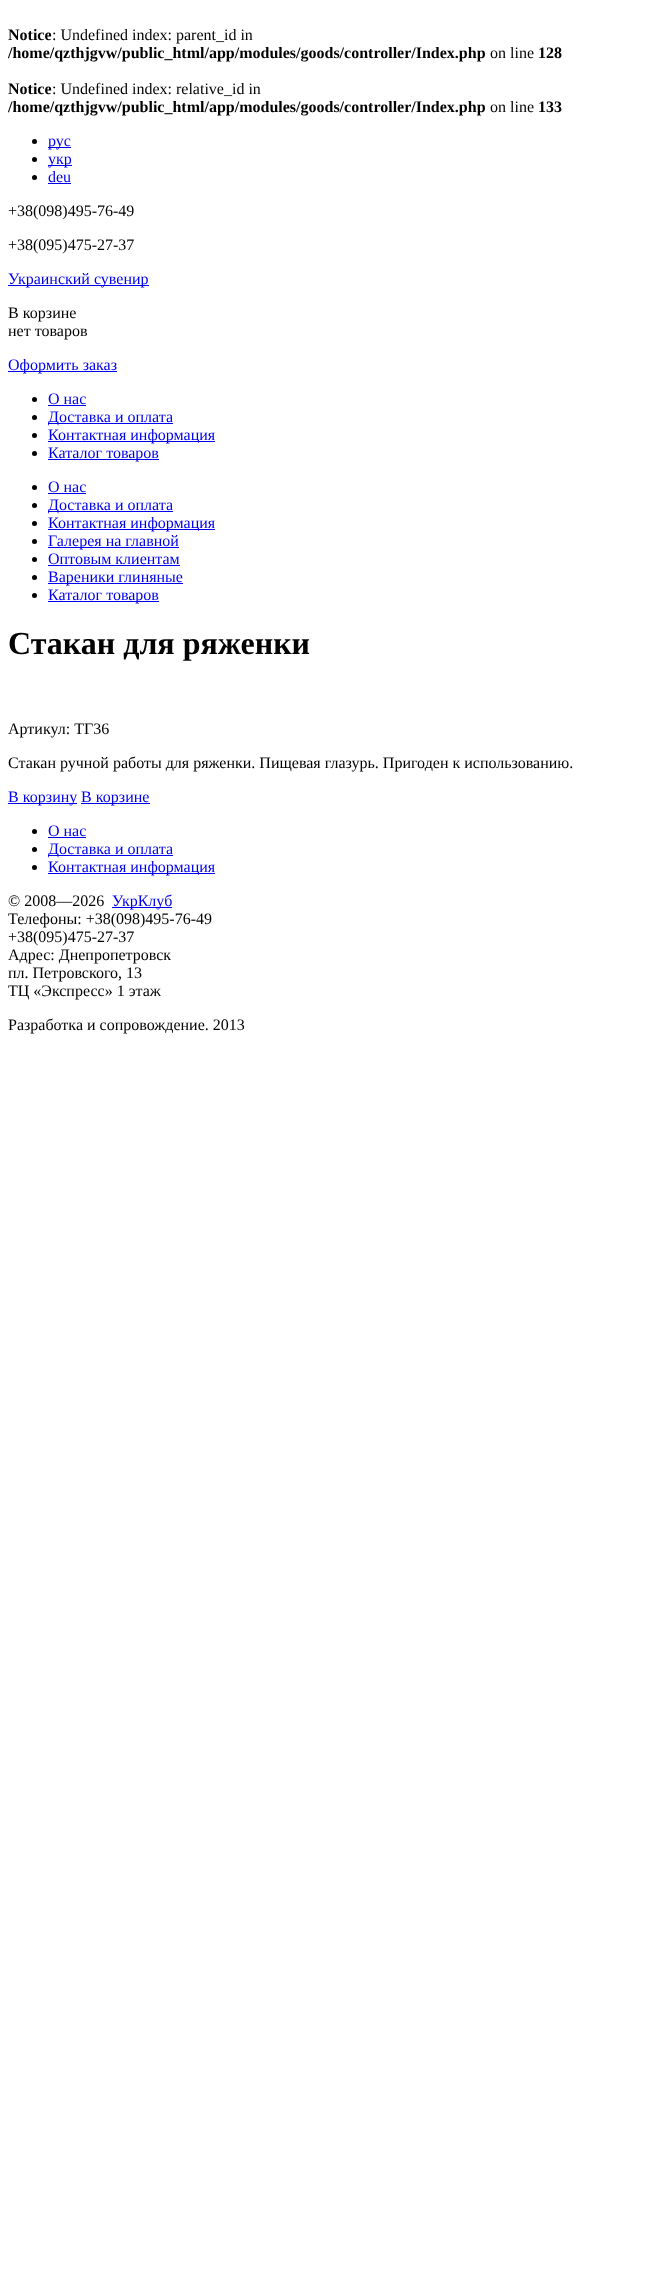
(async () => {
    const canvas = document.querySelector("canvas");
    canvas.width = 652;
    canvas.height = 2274;
    const context = canvas.getContext("2d");
    context.miterLimit = 4;
    context.fontKerning = "normal";
    function write(s, x, y, font, color) {
        context.font = font;
        context.fillStyle = color;
        context.fillText(s, x, y);
    }
    function block(x, y, w, h, color) {
        context.fillStyle = color;
        context.fillRect(x, y, w, h);
    }

    block(0, 0, 652, 2274, "rgb(255, 255, 255)");
    write("Notice", 8, 40, "bold 16px Liberation Serif", "rgb(0, 0, 0)");
    write(": Undefined index: parent_id in", 52, 40, "16px Liberation Serif", "rgb(0, 0, 0)");
    write("/home/qzthjgvw/public_html/app/modules/goods/controller/Index.php", 8, 58, "bold 16px Liberation Serif", "rgb(0, 0, 0)");
    write("on line", 490, 58, "16px Liberation Serif", "rgb(0, 0, 0)");
    write("128", 538, 58, "bold 16px Liberation Serif", "rgb(0, 0, 0)");
    write("Notice", 8, 94, "bold 16px Liberation Serif", "rgb(0, 0, 0)");
    write(": Undefined index: relative_id in", 52, 94, "16px Liberation Serif", "rgb(0, 0, 0)");
    write("/home/qzthjgvw/public_html/app/modules/goods/controller/Index.php", 8, 112, "bold 16px Liberation Serif", "rgb(0, 0, 0)");
    write("on line", 490, 112, "16px Liberation Serif", "rgb(0, 0, 0)");
    write("133", 538, 112, "bold 16px Liberation Serif", "rgb(0, 0, 0)");
    context.beginPath();
    context.arc(34.5, 141.5, 2.5, 0, Math.PI * 2);
    context.fill();
    block(48, 147, 23, 1, "rgb(0, 0, 238)");
    write("рус", 48, 146, "16px Liberation Serif", "rgb(0, 0, 238)");
    context.fillStyle = "rgb(0, 0, 0)";
    context.beginPath();
    context.arc(34.5, 159.5, 2.5, 0, Math.PI * 2);
    context.fill();
    block(48, 165, 24, 1, "rgb(0, 0, 238)");
    write("укр", 48, 164, "16px Liberation Serif", "rgb(0, 0, 238)");
    context.fillStyle = "rgb(0, 0, 0)";
    context.beginPath();
    context.arc(34.5, 177.5, 2.5, 0, Math.PI * 2);
    context.fill();
    write("deu", 48, 182, "16px Liberation Serif", "rgb(0, 0, 238)");
    block(48, 183, 23, 1, "rgb(0, 0, 238)");
    write("+38(098)495-76-49", 8, 216, "16px Liberation Serif", "rgb(0, 0, 0)");
    write("+38(095)475-27-37", 8, 250, "16px Liberation Serif", "rgb(0, 0, 0)");
    block(8, 285, 141, 1, "rgb(0, 0, 238)");
    write("Украинский сувенир", 8, 284, "16px Liberation Serif", "rgb(0, 0, 238)");
    write("В корзине", 8, 318, "16px Liberation Serif", "rgb(0, 0, 0)");
    write("нет товаров", 8, 336, "16px Liberation Serif", "rgb(0, 0, 0)");
    block(8, 371, 109, 1, "rgb(0, 0, 238)");
    write("Оформить заказ", 8, 370, "16px Liberation Serif", "rgb(0, 0, 238)");
    context.fillStyle = "rgb(0, 0, 0)";
    context.beginPath();
    context.arc(34.5, 399.5, 2.5, 0, Math.PI * 2);
    context.fill();
    write("О нас", 48, 404, "16px Liberation Serif", "rgb(0, 0, 238)");
    block(48, 405, 38, 1, "rgb(0, 0, 238)");
    context.fillStyle = "rgb(0, 0, 0)";
    context.beginPath();
    context.arc(34.5, 417.5, 2.5, 0, Math.PI * 2);
    context.fill();
    block(48, 423, 125, 1, "rgb(0, 0, 238)");
    write("Доставка и оплата", 48, 422, "16px Liberation Serif", "rgb(0, 0, 238)");
    context.fillStyle = "rgb(0, 0, 0)";
    context.beginPath();
    context.arc(34.5, 435.5, 2.5, 0, Math.PI * 2);
    context.fill();
    block(48, 441, 167, 1, "rgb(0, 0, 238)");
    write("Контактная информация", 48, 440, "16px Liberation Serif", "rgb(0, 0, 238)");
    context.fillStyle = "rgb(0, 0, 0)";
    context.beginPath();
    context.arc(34.5, 453.5, 2.5, 0, Math.PI * 2);
    context.fill();
    block(48, 459, 111, 1, "rgb(0, 0, 238)");
    write("Каталог товаров", 48, 458, "16px Liberation Serif", "rgb(0, 0, 238)");
    context.fillStyle = "rgb(0, 0, 0)";
    context.beginPath();
    context.arc(34.5, 487.5, 2.5, 0, Math.PI * 2);
    context.fill();
    write("О нас", 48, 492, "16px Liberation Serif", "rgb(0, 0, 238)");
    block(48, 493, 38, 1, "rgb(0, 0, 238)");
    context.fillStyle = "rgb(0, 0, 0)";
    context.beginPath();
    context.arc(34.5, 505.5, 2.5, 0, Math.PI * 2);
    context.fill();
    block(48, 511, 125, 1, "rgb(0, 0, 238)");
    write("Доставка и оплата", 48, 510, "16px Liberation Serif", "rgb(0, 0, 238)");
    context.fillStyle = "rgb(0, 0, 0)";
    context.beginPath();
    context.arc(34.5, 523.5, 2.5, 0, Math.PI * 2);
    context.fill();
    block(48, 529, 167, 1, "rgb(0, 0, 238)");
    write("Контактная информация", 48, 528, "16px Liberation Serif", "rgb(0, 0, 238)");
    context.fillStyle = "rgb(0, 0, 0)";
    context.beginPath();
    context.arc(34.5, 541.5, 2.5, 0, Math.PI * 2);
    context.fill();
    block(48, 547, 131, 1, "rgb(0, 0, 238)");
    write("Галерея на главной", 48, 546, "16px Liberation Serif", "rgb(0, 0, 238)");
    context.fillStyle = "rgb(0, 0, 0)";
    context.beginPath();
    context.arc(34.5, 559.5, 2.5, 0, Math.PI * 2);
    context.fill();
    write("Оптовым клиентам", 48, 564, "16px Liberation Serif", "rgb(0, 0, 238)");
    block(48, 565, 132, 1, "rgb(0, 0, 238)");
    context.fillStyle = "rgb(0, 0, 0)";
    context.beginPath();
    context.arc(34.5, 577.5, 2.5, 0, Math.PI * 2);
    context.fill();
    block(48, 583, 135, 1, "rgb(0, 0, 238)");
    write("Вареники глиняные", 48, 582, "16px Liberation Serif", "rgb(0, 0, 238)");
    context.fillStyle = "rgb(0, 0, 0)";
    context.beginPath();
    context.arc(34.5, 595.5, 2.5, 0, Math.PI * 2);
    context.fill();
    block(48, 601, 111, 1, "rgb(0, 0, 238)");
    write("Каталог товаров", 48, 600, "16px Liberation Serif", "rgb(0, 0, 238)");
    write("Стакан для ряженки", 8, 654, "bold 32px Liberation Serif", "rgb(0, 0, 0)");
    write("Артикул: ТГ36", 8, 734, "16px Liberation Serif", "rgb(0, 0, 0)");
    write("Стакан ручной работы для ряженки. Пищевая глазурь. Пригоден к использованию.", 8, 768, "16px Liberation Serif", "rgb(0, 0, 0)");
    block(8, 803, 69, 1, "rgb(0, 0, 238)");
    write("В корзину", 8, 802, "16px Liberation Serif", "rgb(0, 0, 238)");
    block(81, 803, 69, 1, "rgb(0, 0, 238)");
    write("В корзине", 81, 802, "16px Liberation Serif", "rgb(0, 0, 238)");
    context.fillStyle = "rgb(0, 0, 0)";
    context.beginPath();
    context.arc(34.5, 831.5, 2.5, 0, Math.PI * 2);
    context.fill();
    write("О нас", 48, 836, "16px Liberation Serif", "rgb(0, 0, 238)");
    block(48, 837, 38, 1, "rgb(0, 0, 238)");
    context.fillStyle = "rgb(0, 0, 0)";
    context.beginPath();
    context.arc(34.5, 849.5, 2.5, 0, Math.PI * 2);
    context.fill();
    block(48, 855, 125, 1, "rgb(0, 0, 238)");
    write("Доставка и оплата", 48, 854, "16px Liberation Serif", "rgb(0, 0, 238)");
    context.fillStyle = "rgb(0, 0, 0)";
    context.beginPath();
    context.arc(34.5, 867.5, 2.5, 0, Math.PI * 2);
    context.fill();
    block(48, 873, 167, 1, "rgb(0, 0, 238)");
    write("Контактная информация", 48, 872, "16px Liberation Serif", "rgb(0, 0, 238)");
    write("© 2008—2026", 8, 906, "16px Liberation Serif", "rgb(0, 0, 0)");
    block(112, 907, 60, 1, "rgb(0, 0, 238)");
    write("УкрКлуб", 112, 906, "16px Liberation Serif", "rgb(0, 0, 238)");
    write("Телефоны: +38(098)495-76-49", 8, 924, "16px Liberation Serif", "rgb(0, 0, 0)");
    write("+38(095)475-27-37", 8, 942, "16px Liberation Serif", "rgb(0, 0, 0)");
    write("Адрес: Днепропетровск", 8, 960, "16px Liberation Serif", "rgb(0, 0, 0)");
    write("пл. Петровского, 13", 8, 978, "16px Liberation Serif", "rgb(0, 0, 0)");
    write("ТЦ «Экспресс» 1 этаж", 8, 996, "16px Liberation Serif", "rgb(0, 0, 0)");
    write("Разработка и сопровождение. 2013", 8, 1030, "16px Liberation Serif", "rgb(0, 0, 0)");
})();
